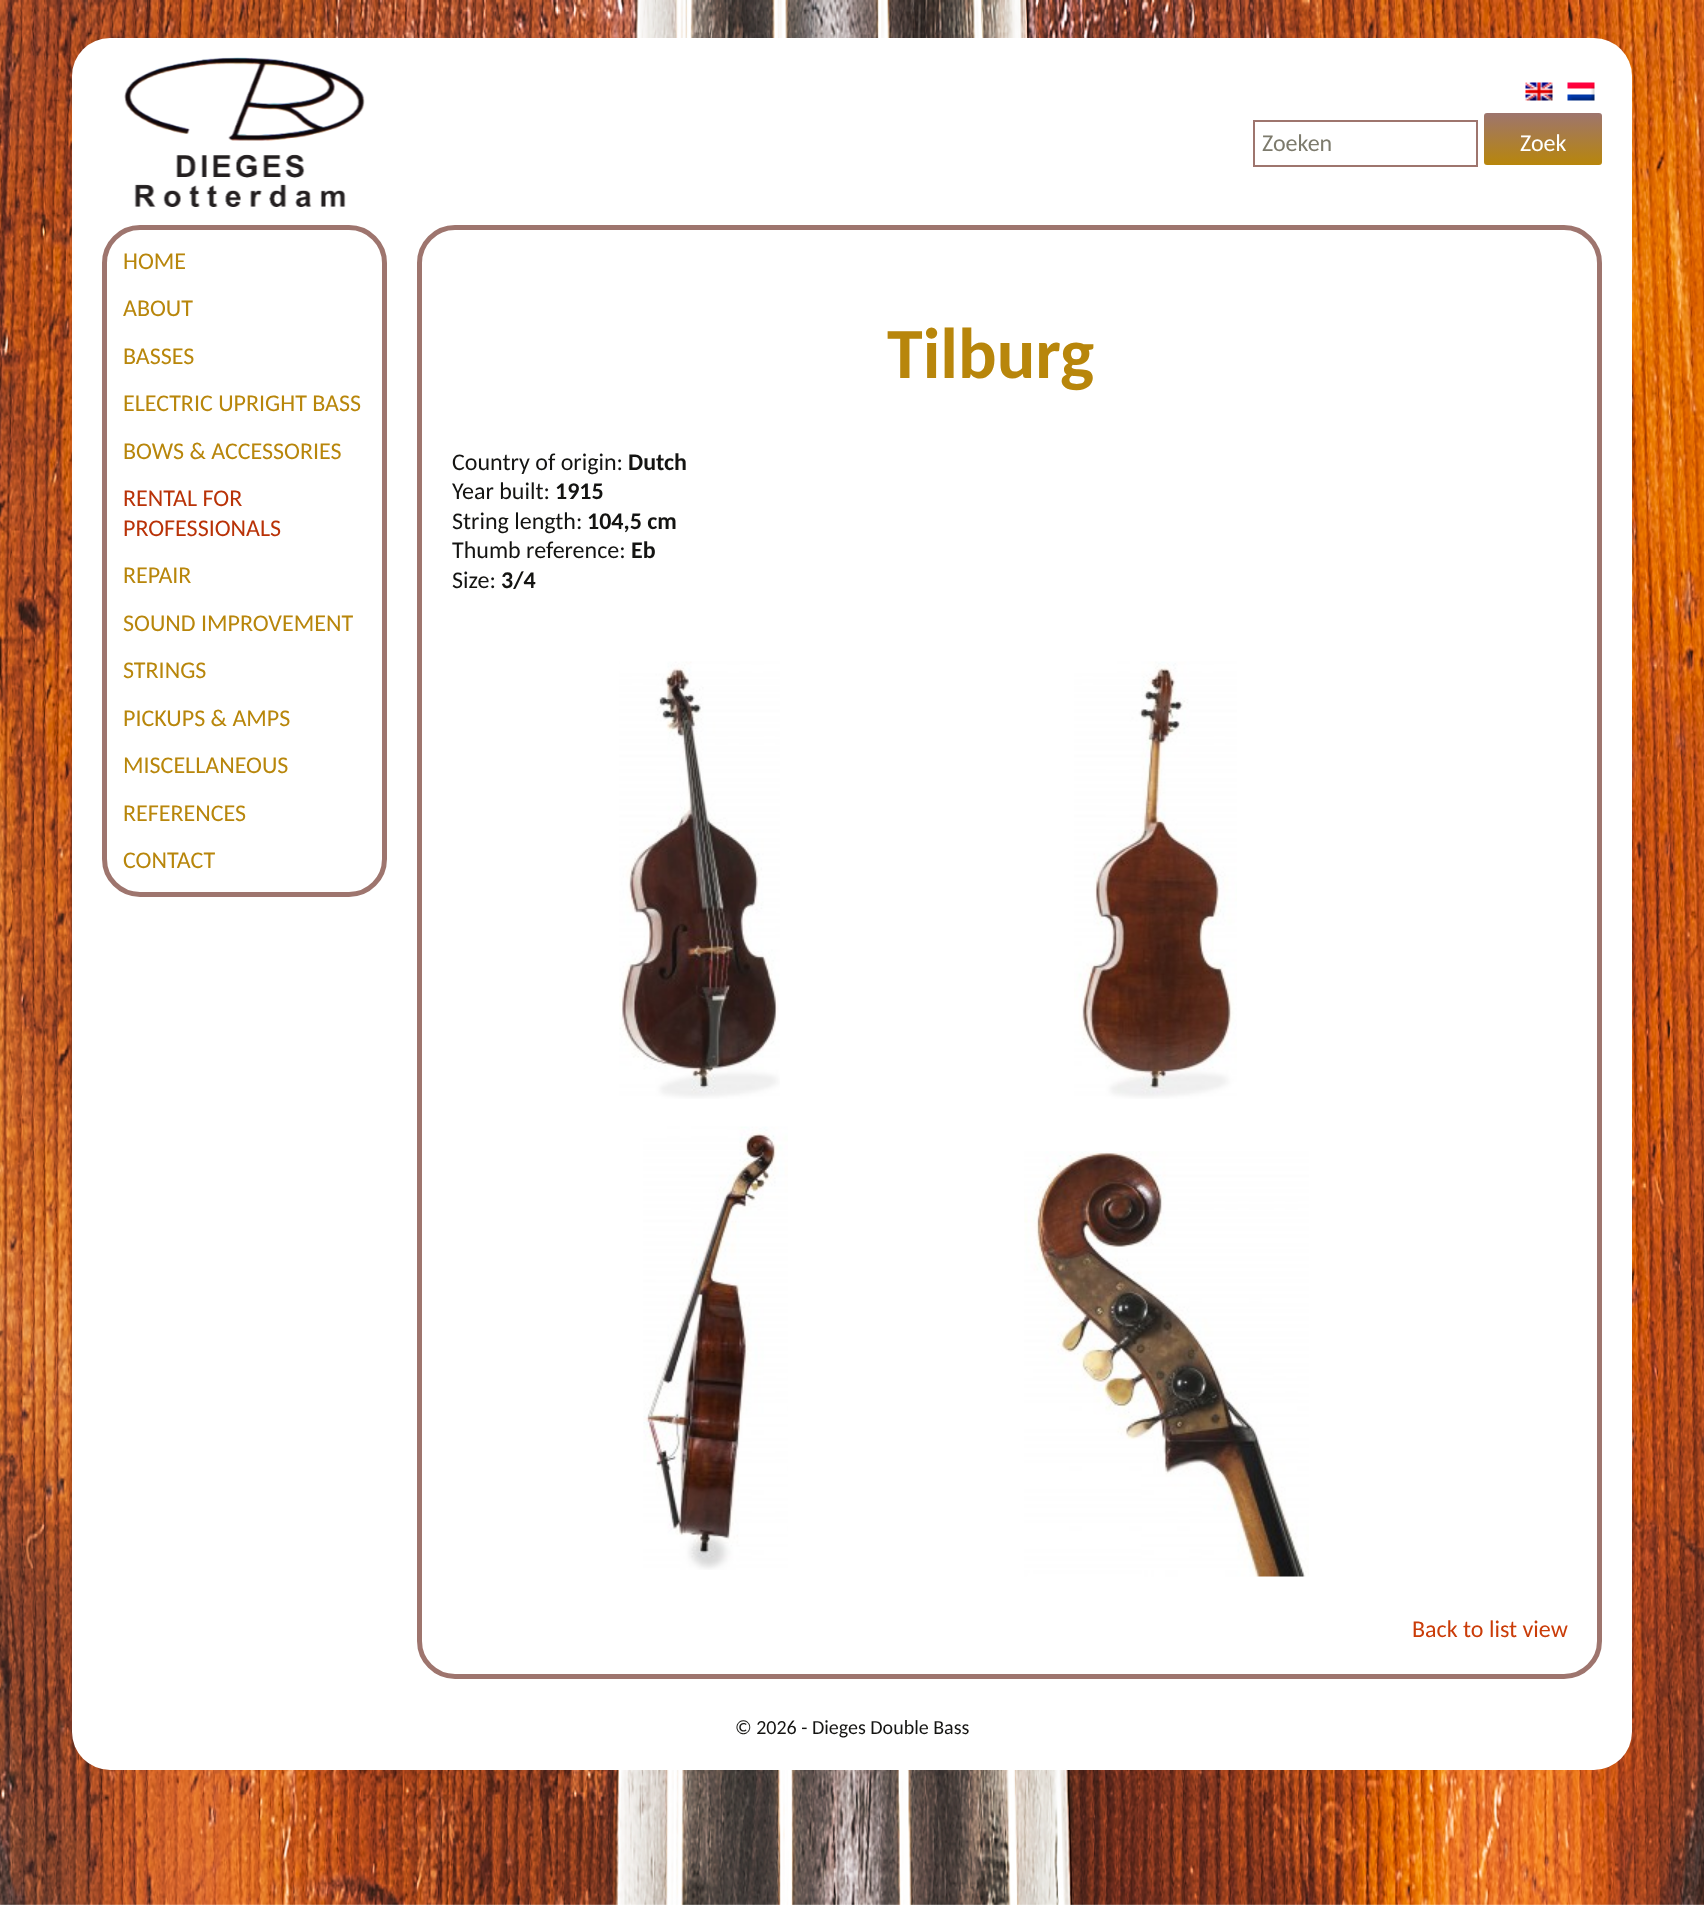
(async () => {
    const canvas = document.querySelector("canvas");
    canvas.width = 1704;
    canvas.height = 1905;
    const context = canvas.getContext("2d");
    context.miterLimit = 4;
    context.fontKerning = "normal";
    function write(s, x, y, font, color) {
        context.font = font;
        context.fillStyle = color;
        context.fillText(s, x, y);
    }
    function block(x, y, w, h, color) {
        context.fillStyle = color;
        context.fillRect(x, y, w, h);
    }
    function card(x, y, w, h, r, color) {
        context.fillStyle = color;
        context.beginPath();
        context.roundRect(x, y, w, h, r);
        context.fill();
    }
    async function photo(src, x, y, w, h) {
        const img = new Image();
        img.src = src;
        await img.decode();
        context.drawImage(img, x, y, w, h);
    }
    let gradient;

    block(0, 0, 1704, 1905, "rgb(255, 255, 255)");
    await photo("media/1.png", 0, 0, 1704, 1905);
    card(72, 38, 1560, 1732, 38, "rgb(255, 255, 255)");
    await photo("media/2.png", 124, 57, 241, 150);
    await photo("media/3.png", 1525, 82, 28, 19);
    await photo("media/4.png", 1567, 82, 28, 19);
    context.strokeStyle = "rgb(158, 117, 110)";
    context.lineWidth = 2;
    context.strokeRect(1254, 121, 223, 45);
    write("Zoeken", 1262, 151, "24px Carlito", "rgb(125, 123, 109)");
    gradient = context.createLinearGradient(1543, 113, 1543, 165);
    gradient.addColorStop(0, "rgb(158, 117, 110)");
    gradient.addColorStop(1, "rgb(184, 134, 11)");
    context.fillStyle = gradient;
    context.beginPath();
    context.roundRect(1484, 113, 118, 52, 3);
    context.fill();
    write("Zoek", 1520, 151, "24px Carlito", "rgb(255, 255, 255)");
    context.beginPath();
    context.roundRect(104.5, 227.5, 280, 667, 35.5);
    context.lineWidth = 5;
    context.stroke();
    write("HOME", 123, 269, "24px Carlito", "rgb(184, 134, 11)");
    write("ABOUT", 123, 316, "24px Carlito", "rgb(184, 134, 11)");
    write("BASSES", 123, 364, "24px Carlito", "rgb(184, 134, 11)");
    write("ELECTRIC UPRIGHT BASS", 123, 411, "24px Carlito", "rgb(184, 134, 11)");
    write("BOWS & ACCESSORIES", 123, 459, "24px Carlito", "rgb(184, 134, 11)");
    write("RENTAL FOR", 123, 506, "24px Carlito", "rgb(185, 50, 7)");
    write("PROFESSIONALS", 123, 536, "24px Carlito", "rgb(185, 50, 7)");
    write("REPAIR", 123, 583, "24px Carlito", "rgb(184, 134, 11)");
    write("SOUND IMPROVEMENT", 123, 631, "24px Carlito", "rgb(184, 134, 11)");
    write("STRINGS", 123, 678, "24px Carlito", "rgb(184, 134, 11)");
    write("PICKUPS & AMPS", 123, 726, "24px Carlito", "rgb(184, 134, 11)");
    write("MISCELLANEOUS", 123, 773, "24px Carlito", "rgb(184, 134, 11)");
    write("REFERENCES", 123, 821, "24px Carlito", "rgb(184, 134, 11)");
    write("CONTACT", 123, 868, "24px Carlito", "rgb(184, 134, 11)");
    context.beginPath();
    context.roundRect(419.5, 227.5, 1180, 1449, 35.5);
    context.stroke();
    write("Tilburg", 887, 378, "bold 72px Carlito", "rgb(184, 134, 11)");
    write("Country of origin:", 452, 470, "24px Carlito", "rgb(20, 20, 18)");
    write("Dutch", 628, 470, "bold 24px Carlito", "rgb(20, 20, 18)");
    write("Year built:", 452, 499, "24px Carlito", "rgb(20, 20, 18)");
    write("1915", 555, 499, "bold 24px Carlito", "rgb(20, 20, 18)");
    write("String length:", 452, 529, "24px Carlito", "rgb(20, 20, 18)");
    write("104,5 cm", 587, 529, "bold 24px Carlito", "rgb(20, 20, 18)");
    write("Thumb reference:", 452, 558, "24px Carlito", "rgb(20, 20, 18)");
    write("Eb", 631, 558, "bold 24px Carlito", "rgb(20, 20, 18)");
    write("Size:", 452, 588, "24px Carlito", "rgb(20, 20, 18)");
    write("3/4", 501, 588, "bold 24px Carlito", "rgb(20, 20, 18)");
    await photo("media/5.png", 619, 661, 161, 438);
    await photo("media/6.png", 1074, 661, 163, 438);
    await photo("media/7.png", 643, 1126, 145, 444);
    await photo("media/8.png", 1024, 1151, 285, 426);
    write("Back to list view", 1412, 1637, "24px Carlito", "rgb(202, 60, 8)");
    write("© 2026 - Dieges Double Bass", 735, 1734, "20px Carlito", "rgb(20, 20, 18)");
})();
